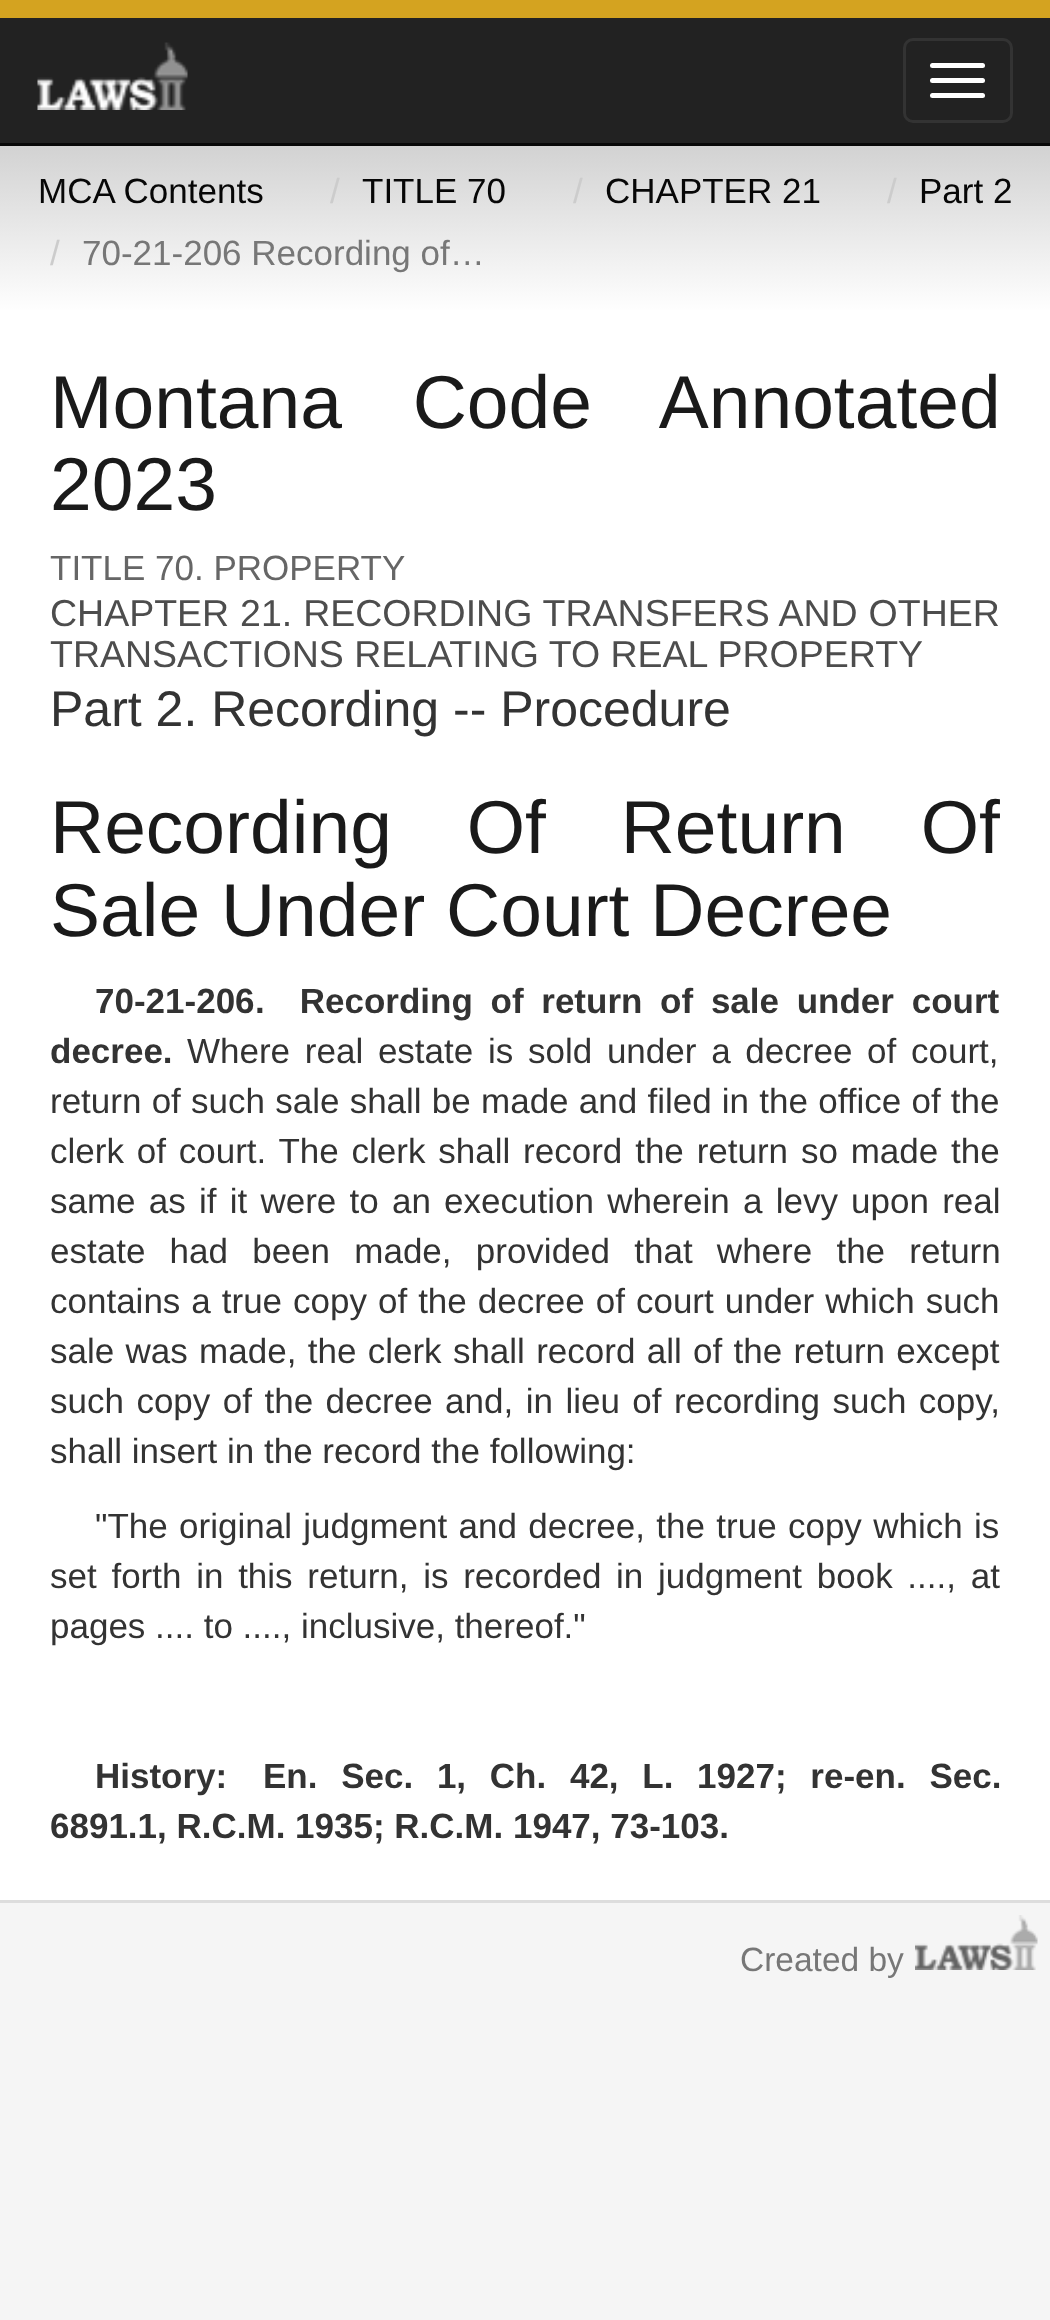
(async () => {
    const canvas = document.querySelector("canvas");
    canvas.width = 1050;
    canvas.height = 2320;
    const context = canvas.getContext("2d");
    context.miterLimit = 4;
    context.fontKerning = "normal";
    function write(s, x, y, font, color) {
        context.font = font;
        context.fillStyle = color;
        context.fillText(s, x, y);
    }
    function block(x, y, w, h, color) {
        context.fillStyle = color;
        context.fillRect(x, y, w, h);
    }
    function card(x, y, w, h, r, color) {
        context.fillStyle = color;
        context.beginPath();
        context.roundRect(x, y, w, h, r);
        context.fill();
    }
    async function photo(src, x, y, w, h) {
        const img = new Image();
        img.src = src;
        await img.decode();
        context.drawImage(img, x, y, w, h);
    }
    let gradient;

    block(0, 0, 1050, 2320, "rgb(245, 245, 245)");
    block(0, 310, 1050, 1590, "rgb(255, 255, 255)");
    block(0, 18, 1050, 125, "rgb(34, 34, 34)");
    block(0, 0, 1050, 18, "rgb(212, 163, 32)");
    block(0, 143, 1050, 3, "rgb(8, 8, 8)");
    await photo("media/1.png", 37, 42, 151, 68);
    context.beginPath();
    context.roundRect(904.5, 39.5, 107, 82, 8.5);
    context.strokeStyle = "rgb(51, 51, 51)";
    context.lineWidth = 3;
    context.stroke();
    card(930, 63, 55, 5, 2.5, "rgb(255, 255, 255)");
    card(930, 78, 55, 5, 2.5, "rgb(255, 255, 255)");
    card(930, 93, 55, 5, 2.5, "rgb(255, 255, 255)");
    gradient = context.createLinearGradient(525, 145, 525, 310);
    gradient.addColorStop(0, "rgb(210, 210, 210)");
    gradient.addColorStop(1, "rgb(254, 254, 254)");
    context.fillStyle = gradient;
    context.fillRect(0, 146, 1050, 164);
    write("MCA Contents", 38, 203, "35px Liberation Sans", "rgb(7, 7, 7)");
    write("/", 330, 203, "35px Liberation Sans", "rgb(204, 204, 204)");
    write("TITLE 70", 362, 203, "35px Liberation Sans", "rgb(7, 7, 7)");
    write("/", 573, 203, "35px Liberation Sans", "rgb(204, 204, 204)");
    write("CHAPTER 21", 605, 203, "35px Liberation Sans", "rgb(7, 7, 7)");
    write("/", 887, 203, "35px Liberation Sans", "rgb(204, 204, 204)");
    write("Part 2", 919, 203, "35px Liberation Sans", "rgb(7, 7, 7)");
    write("/", 50, 265, "35px Liberation Sans", "rgb(204, 204, 204)");
    write("70-21-206 Recording of…", 82, 265, "35px Liberation Sans", "rgb(119, 119, 119)");
    context.wordSpacing = "50px";
    write("Montana Code Annotated", 50, 428, "75px Liberation Sans", "rgb(26, 26, 26)");
    context.wordSpacing = "0px";
    write("2023", 50, 510, "75px Liberation Sans", "rgb(26, 26, 26)");
    write("TITLE 70. PROPERTY", 50, 580, "35px Liberation Sans", "rgb(102, 102, 102)");
    context.wordSpacing = "0.5px";
    write("CHAPTER 21. RECORDING TRANSFERS AND OTHER", 50, 626, "37.5px Liberation Sans", "rgb(77, 77, 77)");
    context.wordSpacing = "0px";
    write("TRANSACTIONS RELATING TO REAL PROPERTY", 50, 667, "37.5px Liberation Sans", "rgb(77, 77, 77)");
    write("Part 2. Recording -- Procedure", 50, 726, "50px Liberation Sans", "rgb(51, 51, 51)");
    context.wordSpacing = "54px";
    write("Recording Of Return Of", 50, 853, "75px Liberation Sans", "rgb(26, 26, 26)");
    context.wordSpacing = "0px";
    write("Sale Under Court Decree", 50, 936, "75px Liberation Sans", "rgb(26, 26, 26)");
    write("70-21-206", 95, 1013, "bold 35px Liberation Sans", "rgb(51, 51, 51)");
    context.wordSpacing = "8px";
    write(". Recording of return of sale under court", 255, 1013, "bold 35px Liberation Sans", "rgb(51, 51, 51)");
    context.wordSpacing = "0px";
    write("decree.", 50, 1063, "bold 35px Liberation Sans", "rgb(51, 51, 51)");
    context.wordSpacing = "5px";
    write("Where real estate is sold under a decree of court,", 187, 1063, "35px Liberation Sans", "rgb(51, 51, 51)");
    context.wordSpacing = "0.5px";
    write("return of such sale shall be made and filed in the office of the", 50, 1113, "35px Liberation Sans", "rgb(51, 51, 51)");
    context.wordSpacing = "3.1px";
    write("clerk of court. The clerk shall record the return so made the", 50, 1163, "35px Liberation Sans", "rgb(51, 51, 51)");
    context.wordSpacing = "3.5px";
    write("same as if it were to an execution wherein a levy upon real", 50, 1213, "35px Liberation Sans", "rgb(51, 51, 51)");
    context.wordSpacing = "14.5px";
    write("estate had been made, provided that where the return", 50, 1263, "35px Liberation Sans", "rgb(51, 51, 51)");
    context.wordSpacing = "1.25px";
    write("contains a true copy of the decree of court under which such", 50, 1313, "35px Liberation Sans", "rgb(51, 51, 51)");
    context.wordSpacing = "1.6px";
    write("sale was made, the clerk shall record all of the return except", 50, 1363, "35px Liberation Sans", "rgb(51, 51, 51)");
    context.wordSpacing = "2.75px";
    write("such copy of the decree and, in lieu of recording such copy,", 50, 1413, "35px Liberation Sans", "rgb(51, 51, 51)");
    context.wordSpacing = "0px";
    write("shall insert in the record the following:", 50, 1463, "35px Liberation Sans", "rgb(51, 51, 51)");
    context.wordSpacing = "1.6px";
    write("\"The original judgment and decree, the true copy which is", 95, 1538, "35px Liberation Sans", "rgb(51, 51, 51)");
    context.wordSpacing = "5px";
    write("set forth in this return, is recorded in judgment book ...., at", 50, 1588, "35px Liberation Sans", "rgb(51, 51, 51)");
    context.wordSpacing = "0px";
    write("pages .... to ...., inclusive, thereof.\"", 50, 1638, "35px Liberation Sans", "rgb(51, 51, 51)");
    write("History:", 95, 1788, "bold 35px Liberation Sans", "rgb(51, 51, 51)");
    context.wordSpacing = "14px";
    write("En. Sec. 1, Ch. 42, L. 1927; re-en. Sec.", 263, 1788, "bold 35px Liberation Sans", "rgb(51, 51, 51)");
    context.wordSpacing = "0px";
    write("6891.1, R.C.M. 1935; R.C.M. 1947, 73-103.", 50, 1838, "bold 35px Liberation Sans", "rgb(51, 51, 51)");
    block(0, 1900, 1050, 3, "rgb(221, 221, 221)");
    write("Created by", 740, 1971, "33.5px Liberation Sans", "rgb(119, 119, 119)");
    await photo("media/2.png", 915, 1915, 123, 55);
})();
